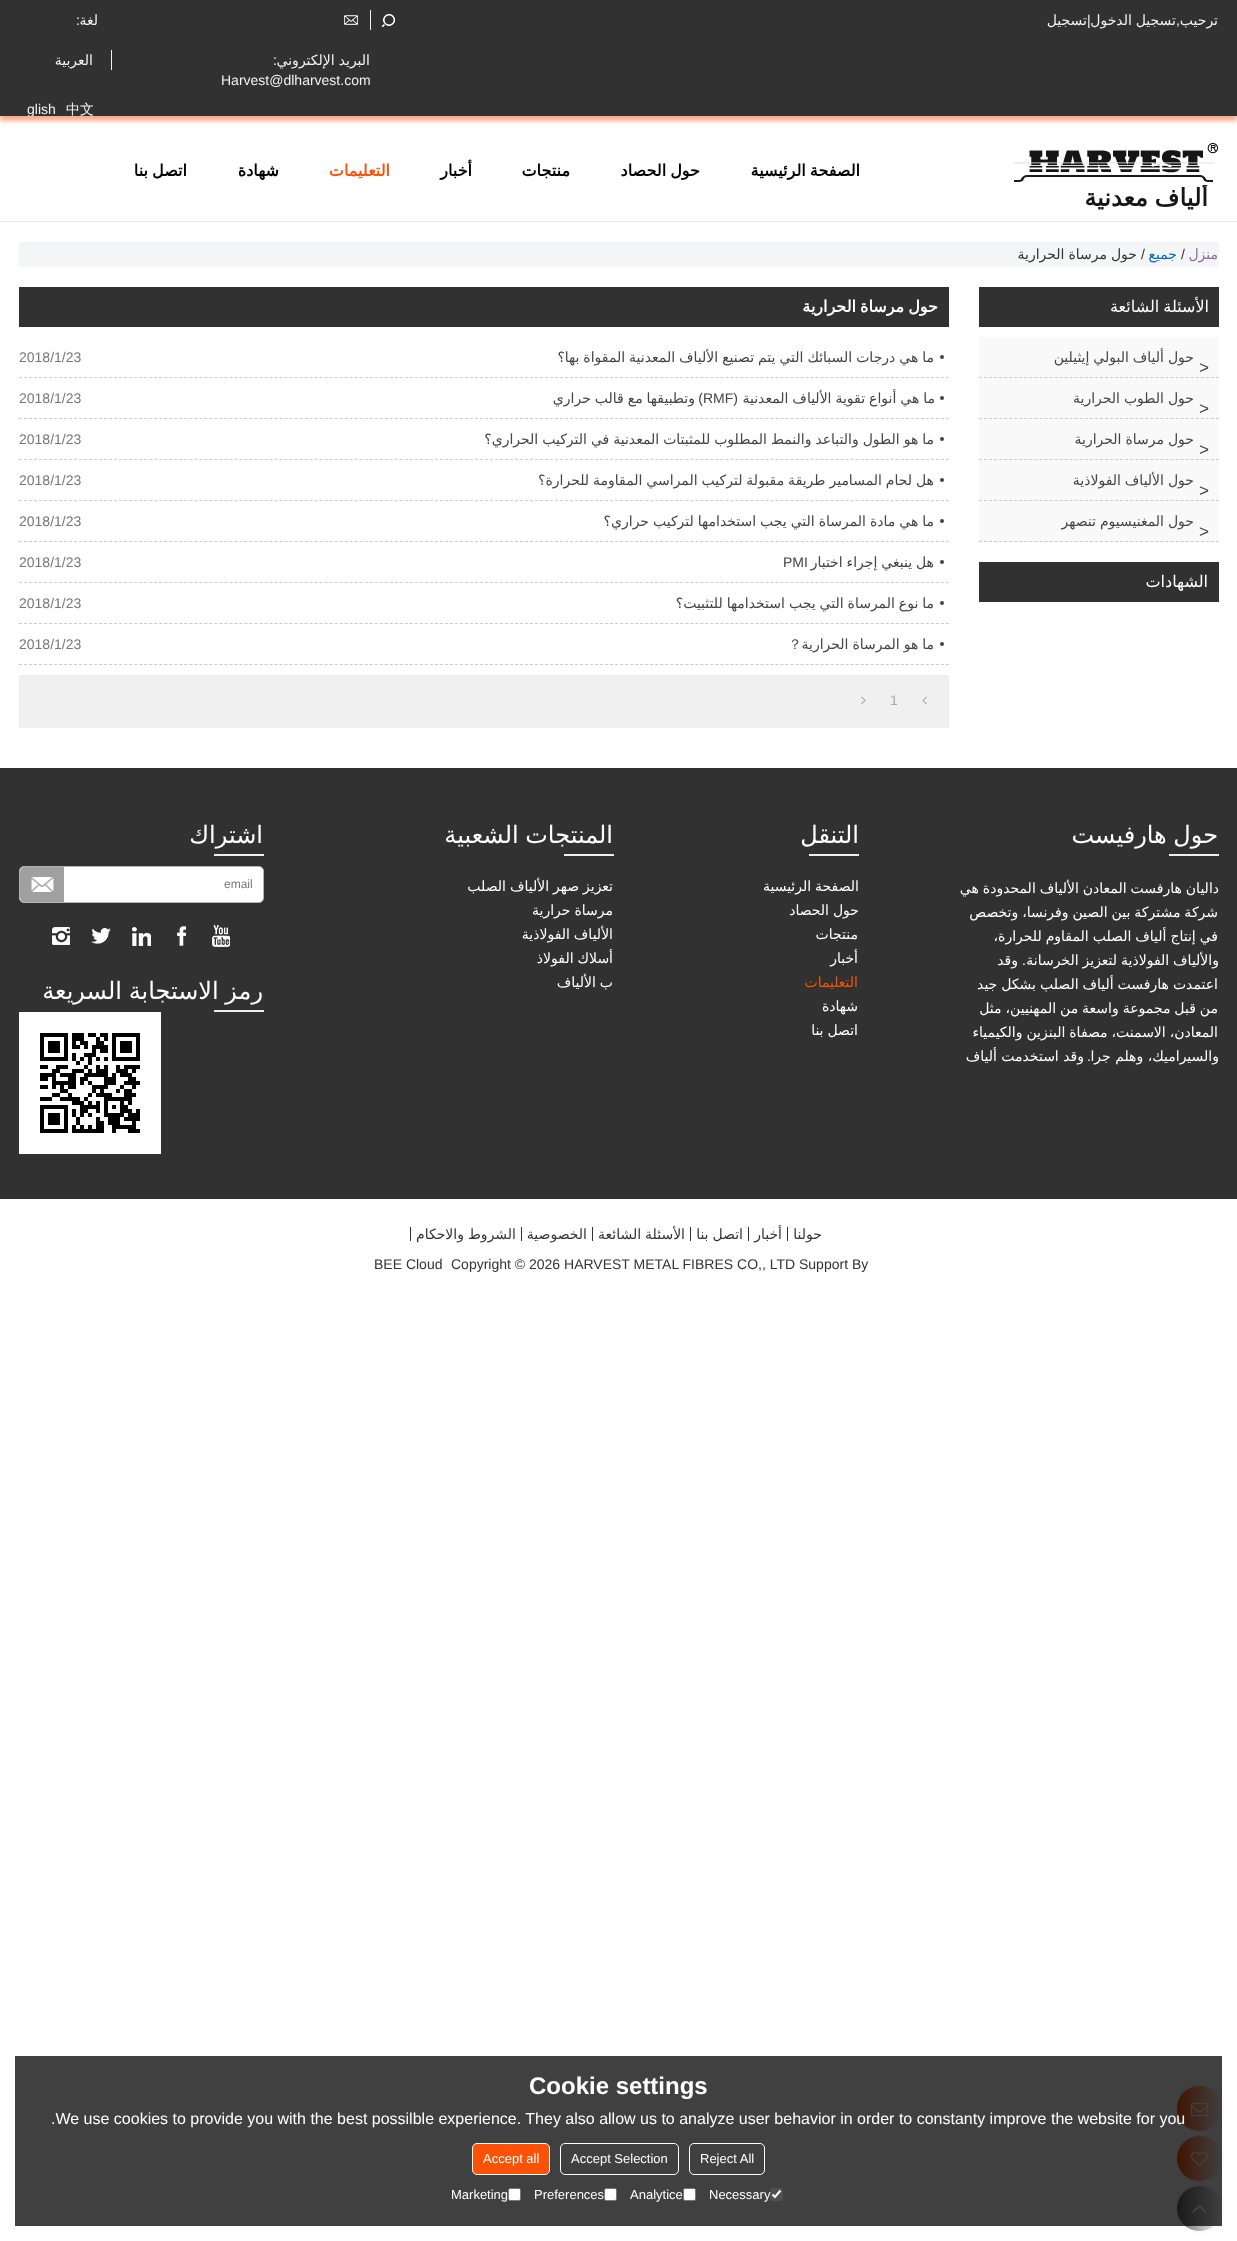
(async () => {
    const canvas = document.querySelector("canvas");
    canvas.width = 1237;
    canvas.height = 2241;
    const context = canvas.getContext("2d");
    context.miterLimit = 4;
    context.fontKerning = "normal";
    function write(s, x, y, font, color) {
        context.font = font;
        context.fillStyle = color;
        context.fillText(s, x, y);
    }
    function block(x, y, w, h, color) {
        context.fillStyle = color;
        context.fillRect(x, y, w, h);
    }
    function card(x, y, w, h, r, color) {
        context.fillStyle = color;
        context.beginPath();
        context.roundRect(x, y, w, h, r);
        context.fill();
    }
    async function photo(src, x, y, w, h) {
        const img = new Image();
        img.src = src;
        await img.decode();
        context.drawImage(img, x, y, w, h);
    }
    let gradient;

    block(0, 0, 1237, 2241, "rgb(255, 255, 255)");
    context.fillStyle = "rgba(251, 85, 32, 0.5)";
    context.filter = "blur(2px)";
    context.beginPath();
    context.rect(0, 5, 1237, 116);
    context.fill();
    context.filter = "none";
    block(0, 0, 1237, 116, "rgb(49, 49, 49)");
    context.direction = "rtl";
    write("ترحيب", 1218, 25, "14px DejaVu Sans", "rgb(242, 242, 242)");
    write(",", 1180, 25, "14px Liberation Sans", "rgb(242, 242, 242)");
    context.wordSpacing = "-0.5px";
    write("تسجيل الدخول", 1176, 25, "14px DejaVu Sans", "rgb(242, 242, 242)");
    context.wordSpacing = "0px";
    context.direction = "ltr";
    write("|", 1087, 25, "14px Liberation Sans", "rgb(242, 242, 242)");
    context.direction = "rtl";
    write("تسجيل", 1087, 25, "14px DejaVu Sans", "rgb(242, 242, 242)");
    await photo("media/1.png", 382, 14, 13, 13);
    write("لغة", 98, 25, "14px DejaVu Sans", "rgb(242, 242, 242)");
    write(":", 80, 25, "14px Liberation Sans", "rgb(242, 242, 242)");
    write("العربية", 93, 65, "14px DejaVu Sans", "rgb(242, 242, 242)");
    context.direction = "ltr";
    write("中文", 66, 114, "500 14px WenQuanYi Zen Hei", "rgb(242, 242, 242)");
    context.save();
    context.beginPath();
    context.rect(24, 88, 75, 28);
    context.clip();
    write("glish", 27, 114, "14px Liberation Sans", "rgb(242, 242, 242)");
    context.restore();
    block(370, 10, 1, 20, "rgb(242, 242, 242)");
    await photo("media/2.png", 344, 15, 14, 10);
    context.wordSpacing = "-0.5px";
    context.direction = "rtl";
    write("البريد الإلكتروني", 370, 65, "14px DejaVu Sans", "rgb(242, 242, 242)");
    context.wordSpacing = "0px";
    write(":", 277, 65, "14px Liberation Sans", "rgb(242, 242, 242)");
    context.direction = "ltr";
    write("Harvest@dlharvest.com", 221, 85, "14px Liberation Sans", "rgb(242, 242, 242)");
    block(111, 50, 1, 20, "rgb(242, 242, 242)");
    block(0, 221, 1237, 1, "rgb(235, 235, 235)");
    context.wordSpacing = "-1px";
    context.direction = "rtl";
    write("الصفحة الرئيسية", 860, 176, "bold 16px DejaVu Sans", "rgb(0, 0, 0)");
    write("حول الحصاد", 700, 176, "bold 16px DejaVu Sans", "rgb(0, 0, 0)");
    context.wordSpacing = "0px";
    write("منتجات", 570, 176, "bold 16px DejaVu Sans", "rgb(0, 0, 0)");
    write("أخبار", 472, 176, "bold 16px DejaVu Sans", "rgb(0, 0, 0)");
    write("التعليمات", 390, 176, "bold 16px DejaVu Sans", "rgb(251, 82, 8)");
    write("شهادة", 279, 176, "bold 16px DejaVu Sans", "rgb(0, 0, 0)");
    context.wordSpacing = "-1px";
    write("اتصل بنا", 187, 176, "bold 16px DejaVu Sans", "rgb(0, 0, 0)");
    await photo("media/3.png", 1014, 143, 204, 39);
    context.save();
    context.beginPath();
    context.rect(1014, 185, 205, 26);
    context.clip();
    write("ألياف معدنية", 1208, 206, "bold 24px DejaVu Sans", "rgb(21, 21, 21)");
    context.restore();
    block(19, 242, 1200, 25, "rgb(244, 245, 247)");
    context.wordSpacing = "0px";
    write("منزل", 1218, 259, "14px DejaVu Sans", "rgb(153, 102, 153)");
    context.direction = "ltr";
    write("/", 1181, 259, "14px Liberation Sans", "rgb(51, 51, 51)");
    context.direction = "rtl";
    write("جميع", 1177, 259, "14px DejaVu Sans", "rgb(0, 102, 204)");
    context.direction = "ltr";
    write("/", 1141, 259, "14px Liberation Sans", "rgb(51, 51, 51)");
    context.wordSpacing = "-0.5px";
    context.direction = "rtl";
    write("حول مرساة الحرارية", 1137, 259, "14px DejaVu Sans", "rgb(51, 51, 51)");
    block(979, 287, 240, 40, "rgb(49, 49, 49)");
    context.wordSpacing = "-1px";
    write("الأسئلة الشائعة", 1209, 312, "16px DejaVu Sans", "rgb(255, 255, 255)");
    block(979, 337, 240, 205, "rgb(249, 249, 249)");
    context.beginPath();
    context.moveTo(979, 377.5);
    context.lineTo(1219, 377.5);
    context.strokeStyle = "rgb(204, 204, 204)";
    context.setLineDash([3, 2.04]);
    context.stroke();
    context.wordSpacing = "-0.5px";
    write("حول ألياف البولي إيثيلين", 1194, 362, "14px DejaVu Sans", "rgb(68, 68, 68)");
    context.wordSpacing = "0px";
    context.direction = "ltr";
    context.font = "17px Liberation Sans";
    context.save();
    context.translate(1209, 362);
    context.rotate(180 * Math.PI / 180);
    context.fillText("<", 0, 0);
    context.restore();
    context.beginPath();
    context.moveTo(979, 418.5);
    context.lineTo(1219, 418.5);
    context.stroke();
    context.wordSpacing = "-0.5px";
    context.direction = "rtl";
    write("حول الطوب الحرارية", 1194, 403, "14px DejaVu Sans", "rgb(68, 68, 68)");
    context.wordSpacing = "0px";
    context.direction = "ltr";
    context.font = "17px Liberation Sans";
    context.save();
    context.translate(1209, 403);
    context.rotate(180 * Math.PI / 180);
    context.fillText("<", 0, 0);
    context.restore();
    context.beginPath();
    context.moveTo(979, 459.5);
    context.lineTo(1219, 459.5);
    context.stroke();
    context.wordSpacing = "-0.5px";
    context.direction = "rtl";
    write("حول مرساة الحرارية", 1194, 444, "14px DejaVu Sans", "rgb(68, 68, 68)");
    context.wordSpacing = "0px";
    context.direction = "ltr";
    context.font = "17px Liberation Sans";
    context.save();
    context.translate(1209, 444);
    context.rotate(180 * Math.PI / 180);
    context.fillText("<", 0, 0);
    context.restore();
    context.beginPath();
    context.moveTo(979, 500.5);
    context.lineTo(1219, 500.5);
    context.stroke();
    context.wordSpacing = "-0.5px";
    context.direction = "rtl";
    write("حول الألياف الفولاذية", 1194, 485, "14px DejaVu Sans", "rgb(68, 68, 68)");
    context.wordSpacing = "0px";
    context.direction = "ltr";
    context.font = "17px Liberation Sans";
    context.save();
    context.translate(1209, 485);
    context.rotate(180 * Math.PI / 180);
    context.fillText("<", 0, 0);
    context.restore();
    context.beginPath();
    context.moveTo(979, 541.5);
    context.lineTo(1219, 541.5);
    context.stroke();
    context.wordSpacing = "-0.5px";
    context.direction = "rtl";
    write("حول المغنيسيوم تنصهر", 1194, 526, "14px DejaVu Sans", "rgb(68, 68, 68)");
    context.wordSpacing = "0px";
    context.direction = "ltr";
    context.font = "17px Liberation Sans";
    context.save();
    context.translate(1209, 526);
    context.rotate(180 * Math.PI / 180);
    context.fillText("<", 0, 0);
    context.restore();
    block(979, 562, 240, 40, "rgb(49, 49, 49)");
    context.direction = "rtl";
    write("الشهادات", 1208, 587, "16px DejaVu Sans", "rgb(255, 255, 255)");
    block(19, 287, 930, 40, "rgb(49, 49, 49)");
    context.wordSpacing = "-1px";
    write("حول مرساة الحرارية", 938, 312, "bold 16px DejaVu Sans", "rgb(255, 255, 255)");
    context.beginPath();
    context.moveTo(19, 377.5);
    context.lineTo(949, 377.5);
    context.setLineDash([3, 2.01]);
    context.stroke();
    context.fillStyle = "rgb(68, 68, 68)";
    context.beginPath();
    context.arc(942, 357, 2, 0, Math.PI * 2);
    context.fill();
    context.wordSpacing = "-0.5px";
    write("ما هي درجات السبائك التي يتم تصنيع الألياف المعدنية المقواة بها؟", 934, 362, "14px DejaVu Sans", "rgb(68, 68, 68)");
    context.wordSpacing = "0px";
    context.direction = "ltr";
    write("2018/1/23", 19, 362, "14px Liberation Sans", "rgb(119, 119, 119)");
    context.beginPath();
    context.moveTo(19, 418.5);
    context.lineTo(949, 418.5);
    context.stroke();
    context.fillStyle = "rgb(68, 68, 68)";
    context.beginPath();
    context.arc(942, 398, 2, 0, Math.PI * 2);
    context.fill();
    context.wordSpacing = "-0.5px";
    context.direction = "rtl";
    write("ما هي أنواع تقوية الألياف المعدنية", 935, 403, "14px DejaVu Sans", "rgb(68, 68, 68)");
    context.wordSpacing = "0px";
    write("(", 738, 403, "14px Liberation Sans", "rgb(68, 68, 68)");
    context.direction = "ltr";
    write("RMF", 703, 403, "14px Liberation Sans", "rgb(68, 68, 68)");
    context.direction = "rtl";
    write(")", 703, 403, "14px Liberation Sans", "rgb(68, 68, 68)");
    context.wordSpacing = "-0.5px";
    write("وتطبيقها مع قالب حراري", 695, 403, "14px DejaVu Sans", "rgb(68, 68, 68)");
    context.wordSpacing = "0px";
    context.direction = "ltr";
    write("2018/1/23", 19, 403, "14px Liberation Sans", "rgb(119, 119, 119)");
    context.beginPath();
    context.moveTo(19, 459.5);
    context.lineTo(949, 459.5);
    context.stroke();
    context.fillStyle = "rgb(68, 68, 68)";
    context.beginPath();
    context.arc(942, 439, 2, 0, Math.PI * 2);
    context.fill();
    context.wordSpacing = "-0.5px";
    context.direction = "rtl";
    write("ما هو الطول والتباعد والنمط المطلوب للمثبتات المعدنية في التركيب الحراري؟", 934, 444, "14px DejaVu Sans", "rgb(68, 68, 68)");
    context.wordSpacing = "0px";
    context.direction = "ltr";
    write("2018/1/23", 19, 444, "14px Liberation Sans", "rgb(119, 119, 119)");
    context.beginPath();
    context.moveTo(19, 500.5);
    context.lineTo(949, 500.5);
    context.stroke();
    context.fillStyle = "rgb(68, 68, 68)";
    context.beginPath();
    context.arc(942, 480, 2, 0, Math.PI * 2);
    context.fill();
    context.wordSpacing = "-0.5px";
    context.direction = "rtl";
    write("هل لحام المسامير طريقة مقبولة لتركيب المراسي المقاومة للحرارة؟", 934, 485, "14px DejaVu Sans", "rgb(68, 68, 68)");
    context.wordSpacing = "0px";
    context.direction = "ltr";
    write("2018/1/23", 19, 485, "14px Liberation Sans", "rgb(119, 119, 119)");
    context.beginPath();
    context.moveTo(19, 541.5);
    context.lineTo(949, 541.5);
    context.stroke();
    context.fillStyle = "rgb(68, 68, 68)";
    context.beginPath();
    context.arc(942, 521, 2, 0, Math.PI * 2);
    context.fill();
    context.wordSpacing = "-0.5px";
    context.direction = "rtl";
    write("ما هي مادة المرساة التي يجب استخدامها لتركيب حراري؟", 934, 526, "14px DejaVu Sans", "rgb(68, 68, 68)");
    context.wordSpacing = "0px";
    context.direction = "ltr";
    write("2018/1/23", 19, 526, "14px Liberation Sans", "rgb(119, 119, 119)");
    context.beginPath();
    context.moveTo(19, 582.5);
    context.lineTo(949, 582.5);
    context.stroke();
    context.fillStyle = "rgb(68, 68, 68)";
    context.beginPath();
    context.arc(942, 562, 2, 0, Math.PI * 2);
    context.fill();
    context.wordSpacing = "-0.5px";
    context.direction = "rtl";
    write("هل ينبغي إجراء اختبار", 934, 567, "14px DejaVu Sans", "rgb(68, 68, 68)");
    context.wordSpacing = "0px";
    context.direction = "ltr";
    write("PMI", 783, 567, "14px Liberation Sans", "rgb(68, 68, 68)");
    write("2018/1/23", 19, 567, "14px Liberation Sans", "rgb(119, 119, 119)");
    context.beginPath();
    context.moveTo(19, 623.5);
    context.lineTo(949, 623.5);
    context.stroke();
    context.fillStyle = "rgb(68, 68, 68)";
    context.beginPath();
    context.arc(942, 603, 2, 0, Math.PI * 2);
    context.fill();
    context.wordSpacing = "-0.5px";
    context.direction = "rtl";
    write("ما نوع المرساة التي يجب استخدامها للتثبيت؟", 934, 608, "14px DejaVu Sans", "rgb(68, 68, 68)");
    context.wordSpacing = "0px";
    context.direction = "ltr";
    write("2018/1/23", 19, 608, "14px Liberation Sans", "rgb(119, 119, 119)");
    context.beginPath();
    context.moveTo(19, 664.5);
    context.lineTo(949, 664.5);
    context.stroke();
    context.fillStyle = "rgb(68, 68, 68)";
    context.beginPath();
    context.arc(942, 644, 2, 0, Math.PI * 2);
    context.fill();
    context.wordSpacing = "-0.5px";
    context.direction = "rtl";
    write("ما هو المرساة الحرارية", 934, 649, "14px DejaVu Sans", "rgb(68, 68, 68)");
    context.wordSpacing = "0px";
    write("？", 802, 649, "500 14px WenQuanYi Zen Hei", "rgb(68, 68, 68)");
    context.direction = "ltr";
    write("2018/1/23", 19, 649, "14px Liberation Sans", "rgb(119, 119, 119)");
    block(19, 675, 930, 53, "rgb(240, 240, 240)");
    await photo("media/4.png", 922, 696, 5, 9);
    write("1", 890, 705, "14px Liberation Sans", "rgb(170, 170, 170)");
    await photo("media/5.png", 861, 696, 5, 9);
    block(0, 768, 1237, 431, "rgb(49, 49, 49)");
    context.wordSpacing = "-1px";
    context.direction = "rtl";
    write("حول هارفيست", 1218, 843, "24px DejaVu Sans", "rgb(255, 255, 255)");
    block(1169, 854, 50, 2, "rgb(238, 238, 238)");
    context.save();
    context.beginPath();
    context.rect(959, 856, 260, 212);
    context.clip();
    context.wordSpacing = "-0.5px";
    write("داليان هارفست المعادن الألياف المحدودة هي", 1219, 893, "14px DejaVu Sans", "rgb(255, 255, 255)");
    write("شركة مشتركة بين الصين وفرنسا، وتخصص", 1218, 917, "14px DejaVu Sans", "rgb(255, 255, 255)");
    write("في إنتاج ألياف الصلب المقاوم للحرارة،", 1218, 941, "14px DejaVu Sans", "rgb(255, 255, 255)");
    context.restore();
    context.wordSpacing = "-0.5px";
    write("والألياف الفولاذية لتعزيز الخرسانة", 1219, 965, "14px DejaVu Sans", "rgb(255, 255, 255)");
    context.wordSpacing = "0px";
    write(".", 1026, 965, "14px Liberation Sans", "rgb(255, 255, 255)");
    write("وقد", 1018, 965, "14px DejaVu Sans", "rgb(255, 255, 255)");
    context.save();
    context.beginPath();
    context.rect(959, 856, 260, 212);
    context.clip();
    context.wordSpacing = "-0.5px";
    write("اعتمدت هارفست ألياف الصلب بشكل جيد", 1218, 989, "14px DejaVu Sans", "rgb(255, 255, 255)");
    write("من قبل مجموعة واسعة من المهنيين، مثل", 1218, 1013, "14px DejaVu Sans", "rgb(255, 255, 255)");
    write("المعادن، الاسمنت، مصفاة البنزين والكيمياء", 1218, 1037, "14px DejaVu Sans", "rgb(255, 255, 255)");
    context.restore();
    write("والسيراميك، وهلم جرا", 1219, 1061, "14px DejaVu Sans", "rgb(255, 255, 255)");
    write(".", 1091, 1061, "14px Liberation Sans", "rgb(255, 255, 255)");
    write("وقد استخدمت ألياف", 1084, 1061, "14px DejaVu Sans", "rgb(255, 255, 255)");
    write("التنقل", 859, 843, "24px DejaVu Sans", "rgb(255, 255, 255)");
    block(809, 854, 50, 2, "rgb(238, 238, 238)");
    context.wordSpacing = "-0.5px";
    write("الصفحة الرئيسية", 859, 891, "14px DejaVu Sans", "rgb(255, 255, 255)");
    write("حول الحصاد", 859, 915, "14px DejaVu Sans", "rgb(255, 255, 255)");
    context.wordSpacing = "0px";
    write("منتجات", 858, 939, "14px DejaVu Sans", "rgb(255, 255, 255)");
    write("أخبار", 858, 963, "14px DejaVu Sans", "rgb(255, 255, 255)");
    write("التعليمات", 858, 987, "14px DejaVu Sans", "rgb(251, 82, 8)");
    write("شهادة", 858, 1011, "14px DejaVu Sans", "rgb(255, 255, 255)");
    context.wordSpacing = "-0.5px";
    write("اتصل بنا", 858, 1035, "14px DejaVu Sans", "rgb(255, 255, 255)");
    context.wordSpacing = "-1px";
    write("المنتجات الشعبية", 613, 843, "24px DejaVu Sans", "rgb(255, 255, 255)");
    block(564, 854, 50, 2, "rgb(238, 238, 238)");
    context.wordSpacing = "-0.5px";
    write("تعزيز صهر الألياف الصلب", 613, 891, "14px DejaVu Sans", "rgb(255, 255, 255)");
    write("مرساة حرارية", 613, 915, "14px DejaVu Sans", "rgb(255, 255, 255)");
    write("الألياف الفولاذية", 613, 939, "14px DejaVu Sans", "rgb(255, 255, 255)");
    write("أسلاك الفولاذ", 613, 963, "14px DejaVu Sans", "rgb(255, 255, 255)");
    write("ب الألياف", 613, 987, "14px DejaVu Sans", "rgb(255, 255, 255)");
    context.wordSpacing = "0px";
    write("اشتراك", 263, 843, "24px DejaVu Sans", "rgb(255, 255, 255)");
    block(214, 854, 50, 2, "rgb(238, 238, 238)");
    context.fillStyle = "rgb(255, 255, 255)";
    context.beginPath();
    context.roundRect(19.5, 866.5, 244, 36, 4.5);
    context.fill();
    context.strokeStyle = "rgb(179, 179, 179)";
    context.setLineDash([]);
    context.stroke();
    context.beginPath();
    context.roundRect(65, 867, 198, 35, [0, 5, 5, 0]);
    context.fill();
    context.direction = "ltr";
    write("email", 224, 888, "12px Liberation Sans", "rgb(119, 119, 119)");
    context.fillStyle = "rgb(160, 160, 160)";
    context.beginPath();
    context.moveTo(64, 867);
    context.lineTo(24, 867);
    context.bezierCurveTo(22, 867, 20, 869, 20, 872);
    context.lineTo(20, 897);
    context.bezierCurveTo(20, 900, 22, 902, 24, 902);
    context.lineTo(64, 902);
    context.closePath();
    context.fill();
    await photo("media/6.png", 31, 877, 23, 15);
    await photo("media/7.png", 212, 925, 18, 22);
    await photo("media/8.png", 177, 926, 9, 20);
    await photo("media/9.png", 132, 927, 19, 19);
    await photo("media/10.png", 91, 928, 20, 16);
    await photo("media/11.png", 52, 927, 18, 18);
    context.wordSpacing = "-1px";
    context.direction = "rtl";
    write("رمز الاستجابة السريعة", 263, 999, "24px DejaVu Sans", "rgb(255, 255, 255)");
    block(214, 1010, 50, 2, "rgb(238, 238, 238)");
    context.strokeStyle = "rgb(255, 255, 255)";
    context.lineWidth = 5;
    context.strokeRect(21.5, 1014.5, 137, 137);
    await photo("media/12.png", 24, 1017, 132, 132);
    block(787, 1227, 1, 14, "rgb(49, 49, 49)");
    context.wordSpacing = "0px";
    write("حولنا", 822, 1239, "14px DejaVu Sans", "rgb(51, 51, 51)");
    block(748, 1227, 1, 14, "rgb(49, 49, 49)");
    write("أخبار", 782, 1239, "14px DejaVu Sans", "rgb(51, 51, 51)");
    block(690, 1227, 1, 14, "rgb(49, 49, 49)");
    context.wordSpacing = "-0.5px";
    write("اتصل بنا", 743, 1239, "14px DejaVu Sans", "rgb(51, 51, 51)");
    block(592, 1227, 1, 14, "rgb(49, 49, 49)");
    write("الأسئلة الشائعة", 685, 1239, "14px DejaVu Sans", "rgb(51, 51, 51)");
    block(521, 1227, 1, 14, "rgb(49, 49, 49)");
    context.wordSpacing = "0px";
    write("الخصوصية", 587, 1239, "14px DejaVu Sans", "rgb(51, 51, 51)");
    block(410, 1227, 1, 14, "rgb(49, 49, 49)");
    context.wordSpacing = "-0.5px";
    write("الشروط والاحكام", 516, 1239, "14px DejaVu Sans", "rgb(51, 51, 51)");
    context.wordSpacing = "0px";
    context.direction = "ltr";
    write("Copyright © 2026 HARVEST METAL FIBRES CO,, LTD Support By", 451, 1269, "14px Liberation Sans", "rgb(51, 51, 51)");
    write("BEE Cloud", 374, 1269, "14px Liberation Sans", "rgb(51, 51, 51)");
    context.fillStyle = "rgb(238, 238, 238)";
    context.filter = "blur(2.5px)";
    context.beginPath();
    context.roundRect(1177, 2086, 45, 45, 22.5);
    context.fill();
    context.filter = "none";
    gradient = context.createLinearGradient(1177, 2109, 1222, 2109);
    gradient.addColorStop(0, "rgb(251, 82, 8)");
    gradient.addColorStop(1, "rgb(255, 255, 255)");
    context.fillStyle = gradient;
    context.beginPath();
    context.arc(1199.5, 2108.5, 22.5, 0, Math.PI * 2);
    context.fill();
    await photo("media/13.png", 1191, 2102, 17, 15);
    context.fillStyle = "rgb(238, 238, 238)";
    context.filter = "blur(2.5px)";
    context.beginPath();
    context.roundRect(1177, 2136, 45, 45, 22.5);
    context.fill();
    context.filter = "none";
    gradient = context.createLinearGradient(1177, 2159, 1222, 2159);
    gradient.addColorStop(0, "rgb(251, 82, 8)");
    gradient.addColorStop(1, "rgb(255, 255, 255)");
    context.fillStyle = gradient;
    context.beginPath();
    context.arc(1199.5, 2158.5, 22.5, 0, Math.PI * 2);
    context.fill();
    await photo("media/14.png", 1191, 2151, 17, 16);
    context.fillStyle = "rgb(238, 238, 238)";
    context.filter = "blur(2.5px)";
    context.beginPath();
    context.roundRect(1177, 2186, 45, 45, 22.5);
    context.fill();
    context.filter = "none";
    gradient = context.createLinearGradient(1177, 2209, 1222, 2209);
    gradient.addColorStop(0, "rgb(102, 102, 102)");
    gradient.addColorStop(1, "rgb(255, 255, 255)");
    context.fillStyle = gradient;
    context.beginPath();
    context.arc(1199.5, 2208.5, 22.5, 0, Math.PI * 2);
    context.fill();
    await photo("media/15.png", 1192, 2204, 15, 9);
    block(15, 2056, 1207, 170, "rgba(0, 0, 0, 0.75)");
    write("Cookie settings", 529, 2094, "bold 24px Liberation Sans", "rgb(255, 255, 255)");
    write(".We use cookies to provide you with the best possilble experience. They also allow us to analyze user behavior in order to constanty improve the website for you", 51, 2124, "16px Liberation Sans", "rgb(255, 255, 255)");
    context.beginPath();
    context.roundRect(689.5, 2143.5, 75, 31, 4.5);
    context.lineWidth = 1;
    context.stroke();
    write("Reject All", 700, 2163, "13px Liberation Sans", "rgb(255, 255, 255)");
    context.beginPath();
    context.roundRect(560.5, 2143.5, 118, 31, 4.5);
    context.stroke();
    write("Accept Selection", 571, 2163, "13px Liberation Sans", "rgb(255, 255, 255)");
    context.fillStyle = "rgb(251, 82, 8)";
    context.beginPath();
    context.roundRect(472.5, 2143.5, 77, 31, 4.5);
    context.fill();
    context.stroke();
    write("Accept all", 483, 2163, "13px Liberation Sans", "rgb(255, 255, 255)");
    card(770, 2188, 13, 13, 2, "rgb(80, 80, 80)");
    context.beginPath();
    context.moveTo(772.5, 2194.5);
    context.lineTo(775, 2197);
    context.lineTo(780.5, 2190.5);
    context.lineWidth = 2.1;
    context.stroke();
    write("Necessary", 709, 2199, "13px Liberation Sans", "rgb(255, 255, 255)");
    context.beginPath();
    context.roundRect(683.5, 2188.5, 12, 12, 1.5);
    context.fill();
    context.strokeStyle = "rgb(118, 118, 118)";
    context.lineWidth = 1;
    context.stroke();
    write("Analytice", 630, 2199, "13px Liberation Sans", "rgb(255, 255, 255)");
    context.beginPath();
    context.roundRect(604.5, 2188.5, 12, 12, 1.5);
    context.fill();
    context.stroke();
    write("Preferences", 534, 2199, "13px Liberation Sans", "rgb(255, 255, 255)");
    context.beginPath();
    context.roundRect(508.5, 2188.5, 12, 12, 1.5);
    context.fill();
    context.stroke();
    write("Marketing", 451, 2199, "13px Liberation Sans", "rgb(255, 255, 255)");
})();
